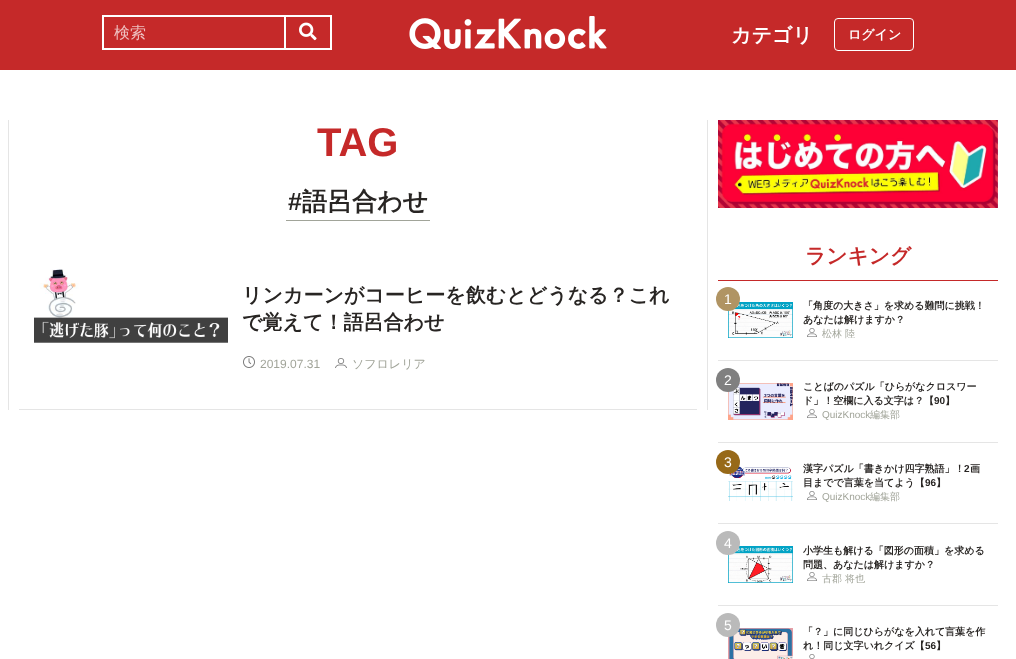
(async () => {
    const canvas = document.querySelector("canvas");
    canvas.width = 1016;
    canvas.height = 659;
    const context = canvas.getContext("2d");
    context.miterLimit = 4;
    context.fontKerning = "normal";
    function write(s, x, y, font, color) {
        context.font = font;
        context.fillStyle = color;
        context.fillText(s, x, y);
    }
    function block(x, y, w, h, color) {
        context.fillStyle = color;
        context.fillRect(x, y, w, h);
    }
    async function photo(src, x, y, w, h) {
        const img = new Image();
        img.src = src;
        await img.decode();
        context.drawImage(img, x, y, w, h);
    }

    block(0, 0, 1016, 659, "rgb(255, 255, 255)");
    block(0, 0, 1016, 70, "rgb(197, 41, 41)");
    context.strokeStyle = "rgb(255, 255, 255)";
    context.lineWidth = 2;
    context.strokeRect(103, 16, 228, 33);
    write("検索", 114, 38, "500 16px WenQuanYi Zen Hei", "rgb(238, 191, 191)");
    block(284, 17, 2, 31, "rgb(255, 255, 255)");
    await photo("media/1.png", 299, 22, 18, 19);
    await photo("media/2.png", 409, 16, 198, 33);
    write("カテゴリ", 731, 42, "bold 20px WenQuanYi Zen Hei", "rgb(255, 255, 255)");
    context.beginPath();
    context.roundRect(834.5, 18.5, 79, 32, 3.5);
    context.lineWidth = 1;
    context.stroke();
    write("ログイン", 848, 39, "bold 13px WenQuanYi Zen Hei", "rgb(255, 255, 255)");
    block(707, 120, 1, 290, "rgb(229, 229, 229)");
    block(8, 120, 1, 290, "rgb(229, 229, 229)");
    write("TAG", 317, 156, "bold 40px Liberation Sans", "rgb(197, 41, 41)");
    block(286, 220, 144, 1, "rgb(161, 164, 153)");
    write("#", 288, 210, "bold 25px Liberation Sans", "rgb(40, 37, 35)");
    write("語呂合わせ", 302, 210, "bold 25px WenQuanYi Zen Hei", "rgb(40, 37, 35)");
    block(19, 409, 678, 1, "rgb(229, 229, 229)");
    await photo("media/3.png", 34, 269, 194, 74);
    write("リンカーンがコーヒーを飲むとどうなる？これ", 242, 302, "bold 20px WenQuanYi Zen Hei", "rgb(40, 37, 35)");
    write("で覚えて！語呂合わせ", 242, 329, "bold 20px WenQuanYi Zen Hei", "rgb(40, 37, 35)");
    await photo("media/4.png", 243, 356, 12, 12);
    write("2019.07.31", 260, 368, "12px Liberation Sans", "rgb(161, 164, 153)");
    await photo("media/5.png", 335, 358, 12, 10);
    write("ソフロレリア", 352, 368, "500 12px WenQuanYi Zen Hei", "rgb(161, 164, 153)");
    await photo("media/6.png", 718, 120, 280, 88);
    block(718, 280, 280, 1, "rgb(197, 41, 41)");
    write("ランキング", 805, 263, "bold 20.75px WenQuanYi Zen Hei", "rgb(197, 41, 41)");
    block(718, 360, 280, 1, "rgb(229, 229, 229)");
    await photo("media/7.png", 728, 302, 65, 36);
    context.fillStyle = "rgb(176, 148, 99)";
    context.beginPath();
    context.arc(728, 299, 12, 0, Math.PI * 2);
    context.fill();
    write("1", 724, 304, "14px Liberation Sans", "rgb(255, 255, 255)");
    write("「角度の大きさ」を求める難問に挑戦！", 803, 309, "bold 10px WenQuanYi Zen Hei", "rgb(40, 37, 35)");
    write("あなたは解けますか？", 803, 323, "bold 10px WenQuanYi Zen Hei", "rgb(40, 37, 35)");
    await photo("media/8.png", 807, 328, 10, 9);
    write("松林 陸", 822, 337, "500 10px WenQuanYi Zen Hei", "rgb(161, 164, 153)");
    block(718, 442, 280, 1, "rgb(229, 229, 229)");
    await photo("media/9.png", 728, 383, 65, 37);
    context.fillStyle = "rgb(128, 128, 128)";
    context.beginPath();
    context.arc(728, 380, 12, 0, Math.PI * 2);
    context.fill();
    write("2", 724, 385, "14px Liberation Sans", "rgb(255, 255, 255)");
    write("ことばのパズル「ひらがなクロスワー", 803, 390, "bold 10px WenQuanYi Zen Hei", "rgb(40, 37, 35)");
    write("ド」！空欄に入る文字は？【", 803, 404, "bold 10px WenQuanYi Zen Hei", "rgb(40, 37, 35)");
    write("90", 934, 404, "bold 10px Liberation Sans", "rgb(40, 37, 35)");
    write("】", 945, 404, "bold 10px WenQuanYi Zen Hei", "rgb(40, 37, 35)");
    await photo("media/8.png", 807, 409, 10, 9);
    write("QuizKnock", 822, 418, "10px Liberation Sans", "rgb(161, 164, 153)");
    write("編集部", 870, 418, "500 10px WenQuanYi Zen Hei", "rgb(161, 164, 153)");
    block(718, 523, 280, 1, "rgb(229, 229, 229)");
    await photo("media/10.png", 728, 466, 65, 35);
    context.fillStyle = "rgb(151, 105, 24)";
    context.beginPath();
    context.arc(728, 462, 12, 0, Math.PI * 2);
    context.fill();
    write("3", 724, 467, "14px Liberation Sans", "rgb(255, 255, 255)");
    write("漢字パズル「書きかけ四字熟語」！", 803, 472, "bold 10px WenQuanYi Zen Hei", "rgb(40, 37, 35)");
    write("2", 964, 472, "bold 10px Liberation Sans", "rgb(40, 37, 35)");
    write("画", 970, 472, "bold 10px WenQuanYi Zen Hei", "rgb(40, 37, 35)");
    write("目までで言葉を当てよう【", 803, 486, "bold 10px WenQuanYi Zen Hei", "rgb(40, 37, 35)");
    write("96", 925, 486, "bold 10px Liberation Sans", "rgb(40, 37, 35)");
    write("】", 936, 486, "bold 10px WenQuanYi Zen Hei", "rgb(40, 37, 35)");
    await photo("media/8.png", 807, 491, 10, 9);
    write("QuizKnock", 822, 500, "10px Liberation Sans", "rgb(161, 164, 153)");
    write("編集部", 870, 500, "500 10px WenQuanYi Zen Hei", "rgb(161, 164, 153)");
    block(718, 605, 280, 1, "rgb(229, 229, 229)");
    await photo("media/11.png", 728, 546, 65, 37);
    context.fillStyle = "rgb(186, 186, 186)";
    context.beginPath();
    context.arc(728, 543, 12, 0, Math.PI * 2);
    context.fill();
    write("4", 724, 548, "14px Liberation Sans", "rgb(255, 255, 255)");
    write("小学生も解ける「図形の面積」を求める", 803, 554, "bold 10px WenQuanYi Zen Hei", "rgb(40, 37, 35)");
    write("問題、あなたは解けますか？", 803, 568, "bold 10px WenQuanYi Zen Hei", "rgb(40, 37, 35)");
    await photo("media/8.png", 807, 572, 10, 9);
    write("古郡 将也", 822, 582, "500 10px WenQuanYi Zen Hei", "rgb(161, 164, 153)");
    await photo("media/12.png", 728, 628, 65, 31);
    context.fillStyle = "rgb(186, 186, 186)";
    context.beginPath();
    context.arc(728, 625, 12, 0, Math.PI * 2);
    context.fill();
    write("5", 724, 630, "14px Liberation Sans", "rgb(255, 255, 255)");
    write("「？」に同じひらがなを入れて言葉を作", 803, 635, "bold 10px WenQuanYi Zen Hei", "rgb(40, 37, 35)");
    write("れ！同じ文字いれクイズ【", 803, 649, "bold 10px WenQuanYi Zen Hei", "rgb(40, 37, 35)");
    write("56", 925, 649, "bold 10px Liberation Sans", "rgb(40, 37, 35)");
    write("】", 936, 649, "bold 10px WenQuanYi Zen Hei", "rgb(40, 37, 35)");
    await photo("media/13.png", 809, 654, 6, 5);
})();
